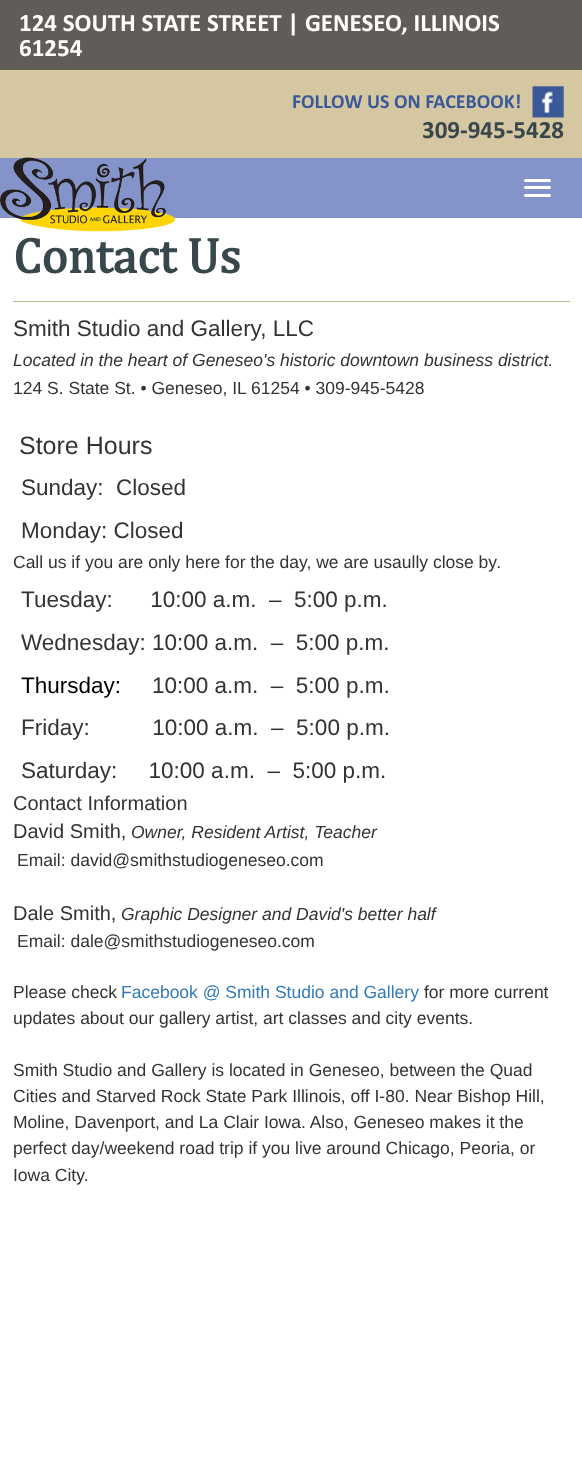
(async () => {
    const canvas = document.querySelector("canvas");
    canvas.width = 582;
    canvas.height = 1459;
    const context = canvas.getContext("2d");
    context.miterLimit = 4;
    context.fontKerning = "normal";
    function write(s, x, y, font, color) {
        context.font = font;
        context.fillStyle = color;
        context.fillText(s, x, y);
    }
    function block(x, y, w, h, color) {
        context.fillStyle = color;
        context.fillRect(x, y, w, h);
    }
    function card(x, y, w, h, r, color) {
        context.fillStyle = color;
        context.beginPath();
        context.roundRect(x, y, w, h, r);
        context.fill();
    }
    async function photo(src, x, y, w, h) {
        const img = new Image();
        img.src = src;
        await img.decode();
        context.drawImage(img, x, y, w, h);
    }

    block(0, 0, 582, 1459, "rgb(213, 199, 162)");
    block(0, 0, 582, 70, "rgb(97, 92, 87)");
    write("124 SOUTH STATE STREET | GENESEO, ILLINOIS", 19, 31, "bold 25px Calibri", "rgb(255, 255, 255)");
    write("61254", 19, 56, "bold 25px Calibri", "rgb(255, 255, 255)");
    write("FOLLOW US ON FACEBOOK!", 292, 108, "bold 20px Calibri", "rgb(59, 89, 152)");
    await photo("media/1.png", 532, 86, 32, 32);
    write("309-945-5428", 422, 138, "bold 25px Calibri", "rgb(55, 71, 76)");
    block(0, 158, 582, 60, "rgb(132, 147, 202)");
    block(0, 218, 582, 1241, "rgb(255, 255, 255)");
    await photo("media/2.png", 0, 157, 175, 75);
    card(524, 179, 27, 3, 1.5, "rgb(255, 255, 255)");
    card(524, 186, 27, 3, 1.5, "rgb(255, 255, 255)");
    card(524, 194, 27, 3, 1.5, "rgb(255, 255, 255)");
    block(13, 301, 557, 1, "rgb(190, 183, 148)");
    write("Contact Us", 13, 273, "bold 50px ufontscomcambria", "rgb(55, 71, 76)");
    write("Smith Studio and Gallery, LLC", 13, 336, "22.5px Liberation Sans", "rgb(51, 51, 51)");
    write("Located in the heart of Geneseo's historic downtown business district.", 13, 366, "italic 17.5px Liberation Sans", "rgb(51, 51, 51)");
    write("124 S. State St. • Geneseo, IL 61254 • 309-945-5428", 13, 394, "17.5px Liberation Sans", "rgb(51, 51, 51)");
    write("Store Hours", 19, 454, "25px Liberation Sans", "rgb(51, 51, 51)");
    write("Sunday:  Closed", 21, 495, "22.5px Liberation Sans", "rgb(51, 51, 51)");
    write("Monday: Closed", 21, 538, "22.5px Liberation Sans", "rgb(51, 51, 51)");
    write("Call us if you are only here for the day, we are usaully close by", 13, 568, "17.5px Liberation Sans", "rgb(51, 51, 51)");
    write(".", 497, 568, "italic 17.5px Liberation Sans", "rgb(51, 51, 51)");
    write("Tuesday:      10:00 a.m.  –  5:00 p.m.", 21, 607, "22.5px Liberation Sans", "rgb(51, 51, 51)");
    write("Wednesday: 10:00 a.m.  –  5:00 p.m.", 21, 650, "22.5px Liberation Sans", "rgb(51, 51, 51)");
    write("Thursday:", 21, 693, "22.5px Liberation Sans", "rgb(0, 0, 0)");
    write("10:00 a.m.  –  5:00 p.m.", 152, 693, "22.5px Liberation Sans", "rgb(51, 51, 51)");
    write("Friday:          10:00 a.m.  –  5:00 p.m.", 21, 735, "22.5px Liberation Sans", "rgb(51, 51, 51)");
    write("Saturday:     10:00 a.m.  –  5:00 p.m.", 21, 778, "22.5px Liberation Sans", "rgb(51, 51, 51)");
    write("Contact Information", 13, 810, "20px Liberation Sans", "rgb(51, 51, 51)");
    write("David Smith,", 13, 838, "20px Liberation Sans", "rgb(51, 51, 51)");
    write("Owner, Resident Artist, Teacher", 131, 838, "italic 17.5px Liberation Sans", "rgb(51, 51, 51)");
    write("Email: david@smithstudiogeneseo.com", 17, 866, "17.5px Liberation Sans", "rgb(51, 51, 51)");
    write("Dale Smith,", 13, 920, "20px Liberation Sans", "rgb(51, 51, 51)");
    write("Graphic Designer and David's better half", 121, 920, "italic 17.5px Liberation Sans", "rgb(51, 51, 51)");
    write("Email: dale@smithstudiogeneseo.com", 17, 947, "17.5px Liberation Sans", "rgb(51, 51, 51)");
    write("Please check", 13, 998, "17.5px Liberation Sans", "rgb(51, 51, 51)");
    write("Facebook @ Smith Studio and Gallery", 121, 998, "17.5px Liberation Sans", "rgb(51, 122, 183)");
    write("for more current", 424, 998, "17.5px Liberation Sans", "rgb(51, 51, 51)");
    write("updates about our gallery artist, art classes and city events.", 13, 1024, "17.5px Liberation Sans", "rgb(51, 51, 51)");
    write("Smith Studio and Gallery is located in Geneseo, between the Quad", 13, 1076, "17.5px Liberation Sans", "rgb(51, 51, 51)");
    write("Cities and Starved Rock State Park Illinois, off I-80. Near Bishop Hill,", 13, 1102, "17.5px Liberation Sans", "rgb(51, 51, 51)");
    write("Moline, Davenport, and La Clair Iowa. Also, Geneseo makes it the", 13, 1128, "17.5px Liberation Sans", "rgb(51, 51, 51)");
    write("perfect day/weekend road trip if you live around Chicago, Peoria, or", 13, 1154, "17.5px Liberation Sans", "rgb(51, 51, 51)");
    write("Iowa City.", 13, 1181, "17.5px Liberation Sans", "rgb(51, 51, 51)");
})();
